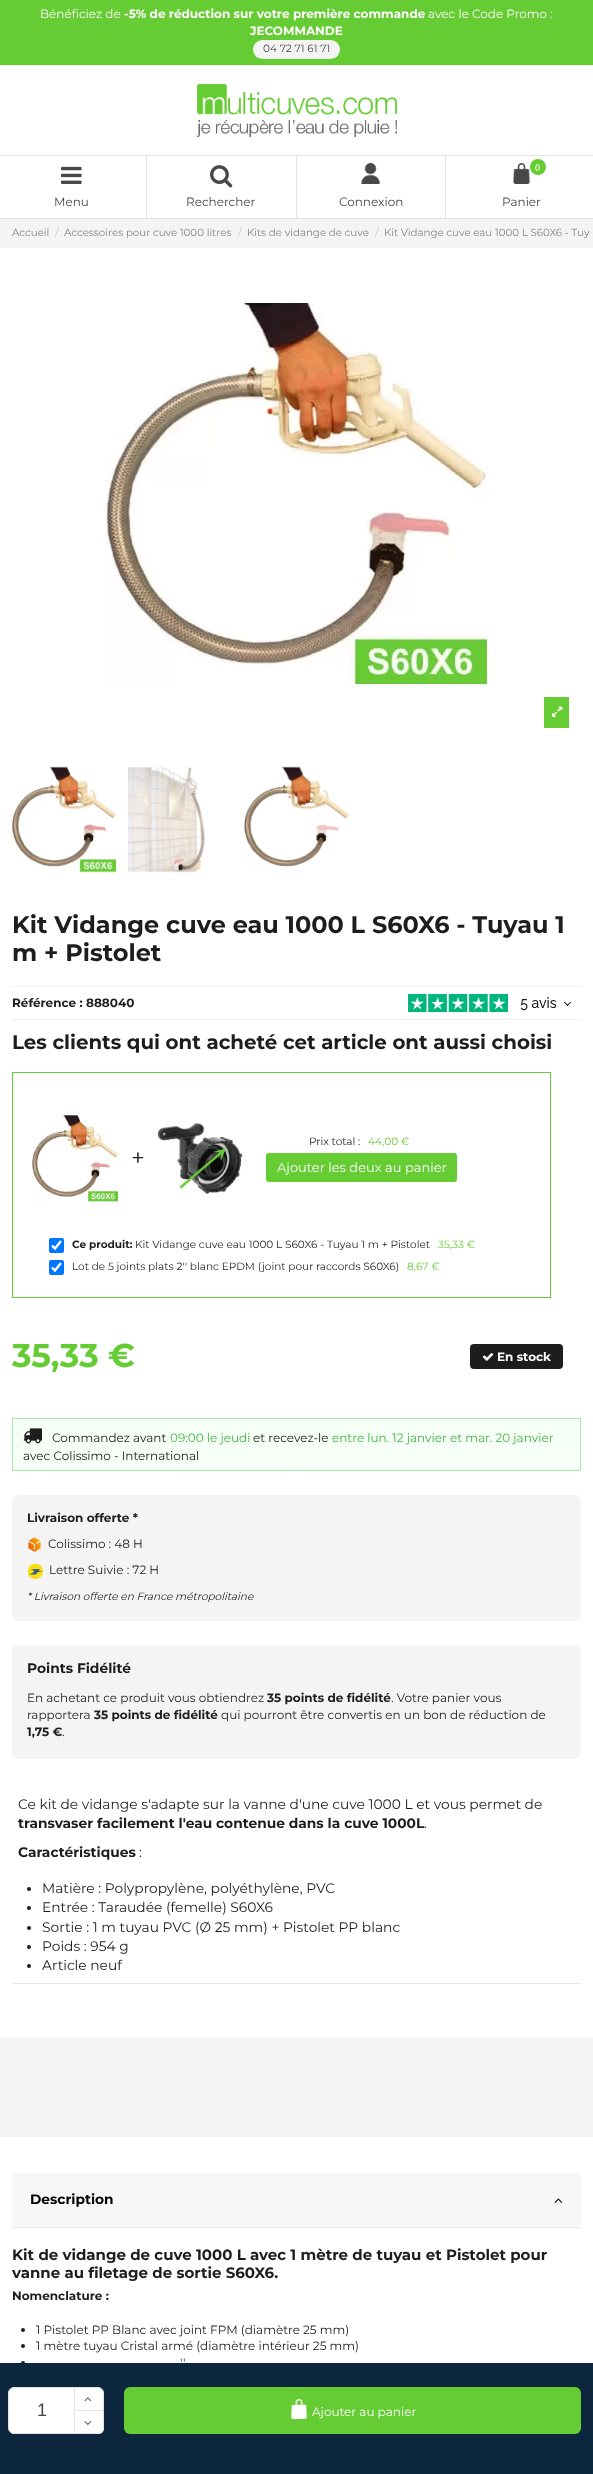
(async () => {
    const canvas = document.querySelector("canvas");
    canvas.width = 593;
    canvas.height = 2474;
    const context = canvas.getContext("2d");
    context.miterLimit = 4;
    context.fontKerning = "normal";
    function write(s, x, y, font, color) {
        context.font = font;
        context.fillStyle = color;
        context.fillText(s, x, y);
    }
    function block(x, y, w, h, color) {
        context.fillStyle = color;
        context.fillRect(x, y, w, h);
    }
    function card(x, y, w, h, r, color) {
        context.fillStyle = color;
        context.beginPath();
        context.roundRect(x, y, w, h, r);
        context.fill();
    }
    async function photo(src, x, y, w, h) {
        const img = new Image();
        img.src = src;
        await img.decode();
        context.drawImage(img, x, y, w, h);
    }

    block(0, 0, 593, 2474, "rgb(255, 255, 255)");
    block(0, 0, 593, 65, "rgb(102, 204, 51)");
    block(0, 65, 593, 1, "rgb(239, 239, 239)");
    write("Bénéficiez de", 40, 18, "12px Montserrat", "rgb(255, 255, 255)");
    write("-5% de réduction sur votre première commande", 124, 18, "bold 12px Montserrat", "rgb(255, 255, 255)");
    write("avec le Code Promo :", 428, 18, "12px Montserrat", "rgb(255, 255, 255)");
    write("JECOMMANDE", 250, 35, "bold 12px Montserrat", "rgb(255, 255, 255)");
    card(253, 40, 87, 19, 9.5, "rgb(244, 244, 244)");
    write("04 72 71 61 71", 263, 52, "10.5px Montserrat", "rgb(72, 72, 72)");
    await photo("media/1.png", 197, 84, 200, 53);
    context.fillStyle = "rgb(229, 229, 229)";
    context.beginPath();
    context.moveTo(-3, 155);
    context.lineTo(147, 155);
    context.lineTo(146, 156);
    context.lineTo(-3, 156);
    context.closePath();
    context.fill();
    context.fillStyle = "rgba(21, 21, 21, 0.11)";
    context.beginPath();
    context.moveTo(147, 155);
    context.lineTo(147, 219);
    context.lineTo(146, 218);
    context.lineTo(146, 156);
    context.closePath();
    context.fill();
    context.beginPath();
    context.moveTo(147, 219);
    context.lineTo(-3, 219);
    context.lineTo(-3, 218);
    context.lineTo(146, 218);
    context.closePath();
    context.fill();
    await photo("media/2.png", 61, 166, 21, 18);
    write("Menu", 54, 206, "12px Montserrat", "rgb(72, 72, 72)");
    context.fillStyle = "rgb(229, 229, 229)";
    context.beginPath();
    context.moveTo(147, 155);
    context.lineTo(297, 155);
    context.lineTo(296, 156);
    context.lineTo(147, 156);
    context.closePath();
    context.fill();
    context.fillStyle = "rgba(21, 21, 21, 0.11)";
    context.beginPath();
    context.moveTo(297, 155);
    context.lineTo(297, 219);
    context.lineTo(296, 218);
    context.lineTo(296, 156);
    context.closePath();
    context.fill();
    context.beginPath();
    context.moveTo(297, 219);
    context.lineTo(147, 219);
    context.lineTo(147, 218);
    context.lineTo(296, 218);
    context.closePath();
    context.fill();
    await photo("media/3.png", 210, 165, 23, 23);
    write("Rechercher", 186, 206, "12px Montserrat", "rgb(72, 72, 72)");
    context.fillStyle = "rgb(229, 229, 229)";
    context.beginPath();
    context.moveTo(297, 155);
    context.lineTo(446, 155);
    context.lineTo(445, 156);
    context.lineTo(297, 156);
    context.closePath();
    context.fill();
    context.fillStyle = "rgba(21, 21, 21, 0.11)";
    context.beginPath();
    context.moveTo(446, 155);
    context.lineTo(446, 219);
    context.lineTo(445, 218);
    context.lineTo(445, 156);
    context.closePath();
    context.fill();
    context.beginPath();
    context.moveTo(446, 219);
    context.lineTo(297, 219);
    context.lineTo(297, 218);
    context.lineTo(445, 218);
    context.closePath();
    context.fill();
    await photo("media/4.png", 360, 163, 21, 21);
    write("Connexion", 339, 206, "12px Montserrat", "rgb(72, 72, 72)");
    block(446, 155, 147, 1, "rgb(229, 229, 229)");
    block(446, 218, 147, 1, "rgb(229, 229, 229)");
    await photo("media/5.png", 512, 163, 19, 21);
    context.fillStyle = "rgb(102, 204, 51)";
    context.beginPath();
    context.arc(538, 167, 8, 0, Math.PI * 2);
    context.fill();
    write("0", 535, 171, "10px Liberation Serif", "rgb(255, 255, 255)");
    write("Panier", 502, 206, "12px Montserrat", "rgb(72, 72, 72)");
    block(0, 219, 593, 29, "rgb(244, 244, 244)");
    write("Accueil", 12, 236, "10.25px Montserrat", "rgb(133, 133, 133)");
    write("/", 55, 236, "10.25px Montserrat", "rgb(200, 200, 200)");
    write("Accessoires pour cuve 1000 litres", 64, 236, "10.25px Montserrat", "rgb(133, 133, 133)");
    write("/", 238, 236, "10.25px Montserrat", "rgb(200, 200, 200)");
    write("Kits de vidange de cuve", 247, 236, "10.25px Montserrat", "rgb(133, 133, 133)");
    write("/", 375, 236, "10.25px Montserrat", "rgb(200, 200, 200)");
    write("Kit Vidange cuve eau 1000 L S60X6 - Tuy", 384, 236, "10.25px Montserrat", "rgb(133, 133, 133)");
    await photo("media/6.png", 106, 301, 381, 387);
    block(544, 697, 25, 31, "rgb(102, 204, 51)");
    await photo("media/7.png", 552, 706, 11, 11);
    await photo("media/8.png", 12, 766, 104, 107);
    await photo("media/9.png", 128, 766, 77, 107);
    await photo("media/10.png", 244, 766, 105, 101);
    write("Kit Vidange cuve eau 1000 L S60X6 - Tuyau 1", 12, 933, "bold 24px Montserrat", "rgb(29, 29, 29)");
    write("m + Pistolet", 12, 961, "bold 24px Montserrat", "rgb(29, 29, 29)");
    block(12, 986, 569, 1, "rgb(239, 239, 239)");
    block(12, 1019, 569, 1, "rgb(239, 239, 239)");
    write("Référence : 888040", 12, 1007, "bold 12px Montserrat", "rgb(29, 29, 29)");
    await photo("media/11.png", 408, 994, 163, 18);
    write("Les clients qui ont acheté cet article ont aussi choisi", 12, 1049, "bold 19.8px Montserrat", "rgb(29, 29, 29)");
    context.strokeStyle = "rgb(102, 204, 51)";
    context.strokeRect(12.5, 1072.5, 538, 225);
    await photo("media/12.png", 32, 1115, 86, 87);
    write("+", 131, 1166, "24px Montserrat", "rgb(35, 35, 35)");
    await photo("media/13.png", 157, 1122, 86, 72);
    write("Prix total :", 309, 1145, "10.5px Montserrat", "rgb(35, 35, 35)");
    write("44,00 €", 368, 1145, "10.5px Montserrat", "rgb(102, 204, 51)");
    card(266, 1153, 191, 29, 3, "rgb(102, 204, 51)");
    write("Ajouter les deux au panier", 277, 1172, "13px Montserrat", "rgb(255, 255, 255)");
    card(49, 1238, 15, 15, 2, "rgb(0, 117, 255)");
    context.beginPath();
    context.moveTo(52, 1245.5);
    context.lineTo(55, 1248.5);
    context.lineTo(61, 1241);
    context.strokeStyle = "rgb(255, 255, 255)";
    context.lineWidth = 2.4;
    context.stroke();
    write("Ce produit:", 72, 1248, "bold 10.5px Montserrat", "rgb(29, 29, 29)");
    write("Kit Vidange cuve eau 1000 L S60X6 - Tuyau 1 m + Pistolet", 135, 1248, "10.5px Montserrat", "rgb(29, 29, 29)");
    write("35,33 €", 438, 1248, "10.5px Montserrat", "rgb(102, 204, 51)");
    card(49, 1260, 15, 15, 2, "rgb(0, 117, 255)");
    context.beginPath();
    context.moveTo(52, 1267.5);
    context.lineTo(55, 1270.5);
    context.lineTo(61, 1263);
    context.stroke();
    write("Lot de 5 joints plats 2'' blanc EPDM (joint pour raccords S60X6)", 72, 1270, "10.5px Montserrat", "rgb(29, 29, 29)");
    write("8,67 €", 407, 1270, "10.5px Montserrat", "rgb(102, 204, 51)");
    write("35,33 €", 12, 1367, "bold 33px Montserrat", "rgb(102, 204, 51)");
    card(470, 1344, 93, 25, 4, "rgb(29, 29, 29)");
    await photo("media/14.png", 482, 1353, 12, 8);
    write("En stock", 497, 1361, "bold 12px Montserrat", "rgb(255, 255, 255)");
    context.fillStyle = "rgb(245, 255, 245)";
    context.beginPath();
    context.rect(12.5, 1418.5, 568, 52);
    context.fill();
    context.strokeStyle = "rgb(173, 228, 172)";
    context.lineWidth = 1;
    context.stroke();
    await photo("media/15.png", 23, 1428, 19, 16);
    write("Commandez avant", 52, 1442, "12px Montserrat", "rgb(29, 29, 29)");
    write("09:00 le jeudi", 170, 1442, "12px Montserrat", "rgb(68, 180, 73)");
    write("et recevez-le", 253, 1442, "12px Montserrat", "rgb(29, 29, 29)");
    write("entre lun. 12 janvier et mar. 20 janvier", 332, 1442, "12px Montserrat", "rgb(68, 180, 73)");
    write("avec Colissimo - International", 23, 1460, "12px Montserrat", "rgb(29, 29, 29)");
    card(12, 1495, 569, 126, 6, "rgb(244, 244, 244)");
    write("Livraison offerte *", 27, 1522, "bold 12px Montserrat", "rgb(29, 29, 29)");
    await photo("media/16.png", 28, 1537, 13, 15);
    write("Colissimo : 48 H", 48, 1548, "12px Montserrat", "rgb(29, 29, 29)");
    await photo("media/17.png", 28, 1564, 15, 15);
    write("Lettre Suivie : 72 H", 49, 1574, "12px Montserrat", "rgb(29, 29, 29)");
    write("* Livraison offerte en France métropolitaine", 27, 1600, "italic 10.5px Montserrat", "rgb(29, 29, 29)");
    card(12, 1645, 569, 114, 6, "rgb(244, 244, 244)");
    write("Points Fidélité", 27, 1673, "bold 13.8px Montserrat", "rgb(29, 29, 29)");
    write("En achetant ce produit vous obtiendrez", 27, 1702, "12px Montserrat", "rgb(29, 29, 29)");
    write("35 points de fidélité", 267, 1702, "bold 12px Montserrat", "rgb(29, 29, 29)");
    write(". Votre panier vous", 391, 1702, "12px Montserrat", "rgb(29, 29, 29)");
    write("rapportera", 27, 1719, "12px Montserrat", "rgb(29, 29, 29)");
    write("35 points de fidélité", 94, 1719, "bold 12px Montserrat", "rgb(29, 29, 29)");
    write("qui pourront être convertis en un bon de réduction de", 221, 1719, "12px Montserrat", "rgb(29, 29, 29)");
    write("1,75 €", 27, 1736, "bold 12px Montserrat", "rgb(29, 29, 29)");
    write(".", 62, 1736, "12px Montserrat", "rgb(29, 29, 29)");
    context.beginPath();
    context.arc(23, 2363, 2, 0, Math.PI * 2);
    context.fill();
    block(0, 2363, 593, 111, "rgb(12, 38, 61)");
    context.fillStyle = "rgb(255, 255, 255)";
    context.beginPath();
    context.roundRect(8.5, 2387.5, 66, 46, [5.5, 0, 0, 5.5]);
    context.fill();
    context.strokeStyle = "rgb(227, 227, 227)";
    context.stroke();
    write("1", 37, 2416, "18px Liberation Sans", "rgb(72, 72, 72)");
    context.fillStyle = "rgb(255, 255, 255)";
    context.beginPath();
    context.roundRect(74.5, 2387.5, 29, 23, [0, 5.5, 0, 0]);
    context.fill();
    context.stroke();
    await photo("media/18.png", 84, 2397, 8, 5);
    context.beginPath();
    context.roundRect(74, 2411, 30, 23, [0, 0, 6, 0]);
    context.fill();
    context.fillStyle = "rgb(227, 227, 227)";
    context.beginPath();
    context.moveTo(104, 2411);
    context.lineTo(103, 2412);
    context.lineTo(103, 2428);
    context.bezierCurveTo(103, 2429.5, 102.5, 2431, 101.5, 2431.5);
    context.lineTo(102.5, 2432.5);
    context.bezierCurveTo(103.5, 2431, 104, 2430, 104, 2428);
    context.closePath();
    context.fill();
    context.beginPath();
    context.moveTo(98, 2434);
    context.bezierCurveTo(100, 2434, 101, 2433.5, 102.5, 2432.5);
    context.lineTo(101.5, 2431.5);
    context.bezierCurveTo(101, 2432.5, 99.5, 2433, 98, 2433);
    context.lineTo(75, 2433);
    context.lineTo(74, 2434);
    context.closePath();
    context.fill();
    context.beginPath();
    context.moveTo(74, 2411);
    context.lineTo(74, 2434);
    context.lineTo(75, 2433);
    context.lineTo(75, 2412);
    context.closePath();
    context.fill();
    await photo("media/19.png", 84, 2421, 8, 4);
    card(124, 2387, 457, 47, 6, "rgb(102, 204, 51)");
    await photo("media/20.png", 290, 2399, 18, 20);
    write("Ajouter au panier", 312, 2416, "12px Montserrat", "rgb(255, 255, 255)");
    write("Ce kit de vidange s'adapte sur la vanne d'une cuve 1000 L et vous permet de", 18, 1809, "13.8px Montserrat", "rgb(29, 29, 29)");
    write("transvaser facilement l'eau contenue dans la cuve 1000L", 18, 1828, "bold 13.8px Montserrat", "rgb(29, 29, 29)");
    write(".", 424, 1828, "13.8px Montserrat", "rgb(29, 29, 29)");
    write("Caractéristiques", 18, 1857, "bold 13.8px Montserrat", "rgb(29, 29, 29)");
    write(":", 139, 1857, "13.8px Montserrat", "rgb(29, 29, 29)");
    context.beginPath();
    context.arc(29, 1889, 2, 0, Math.PI * 2);
    context.fill();
    write("Matière : Polypropylène, polyéthylène, PVC", 42, 1893, "13.8px Montserrat", "rgb(29, 29, 29)");
    context.beginPath();
    context.arc(29, 1908, 2, 0, Math.PI * 2);
    context.fill();
    write("Entrée : Taraudée (femelle) S60X6", 42, 1912, "13.8px Montserrat", "rgb(29, 29, 29)");
    context.beginPath();
    context.arc(29, 1928, 2, 0, Math.PI * 2);
    context.fill();
    write("Sortie : 1 m tuyau PVC (Ø 25 mm) + Pistolet PP blanc", 42, 1932, "13.8px Montserrat", "rgb(29, 29, 29)");
    context.beginPath();
    context.arc(29, 1947, 2, 0, Math.PI * 2);
    context.fill();
    write("Poids : 954 g", 42, 1951, "13.8px Montserrat", "rgb(29, 29, 29)");
    context.beginPath();
    context.arc(29, 1966, 2, 0, Math.PI * 2);
    context.fill();
    write("Article neuf", 42, 1970, "13.8px Montserrat", "rgb(29, 29, 29)");
    block(12, 1983, 569, 1, "rgb(231, 231, 231)");
    block(0, 2037, 593, 100, "rgb(244, 244, 244)");
    block(12, 2227, 569, 1, "rgb(231, 231, 231)");
    block(12, 2173, 569, 53, "rgb(247, 247, 247)");
    write("Description", 30, 2204, "bold 13.75px Montserrat", "rgb(0, 0, 0)");
    await photo("media/21.png", 554, 2198, 9, 5);
    write("Kit de vidange de cuve 1000 L avec 1 mètre de tuyau et Pistolet pour", 12, 2260, "bold 15px Montserrat", "rgb(29, 29, 29)");
    write("vanne au filetage de sortie S60X6.", 12, 2278, "bold 15px Montserrat", "rgb(29, 29, 29)");
    write("Nomenclature :", 12, 2300, "bold 12px Montserrat", "rgb(29, 29, 29)");
    context.beginPath();
    context.arc(23, 2330, 2, 0, Math.PI * 2);
    context.fill();
    write("1 Pistolet PP Blanc avec joint FPM (diamètre 25 mm)", 36, 2334, "12px Montserrat", "rgb(29, 29, 29)");
    context.beginPath();
    context.arc(23, 2346, 2, 0, Math.PI * 2);
    context.fill();
    write("1 mètre tuyau Cristal armé (diamètre intérieur 25 mm)", 36, 2350, "12px Montserrat", "rgb(29, 29, 29)");
    write("''", 180, 2367, "12px Montserrat", "rgb(29, 29, 29)");
})();
